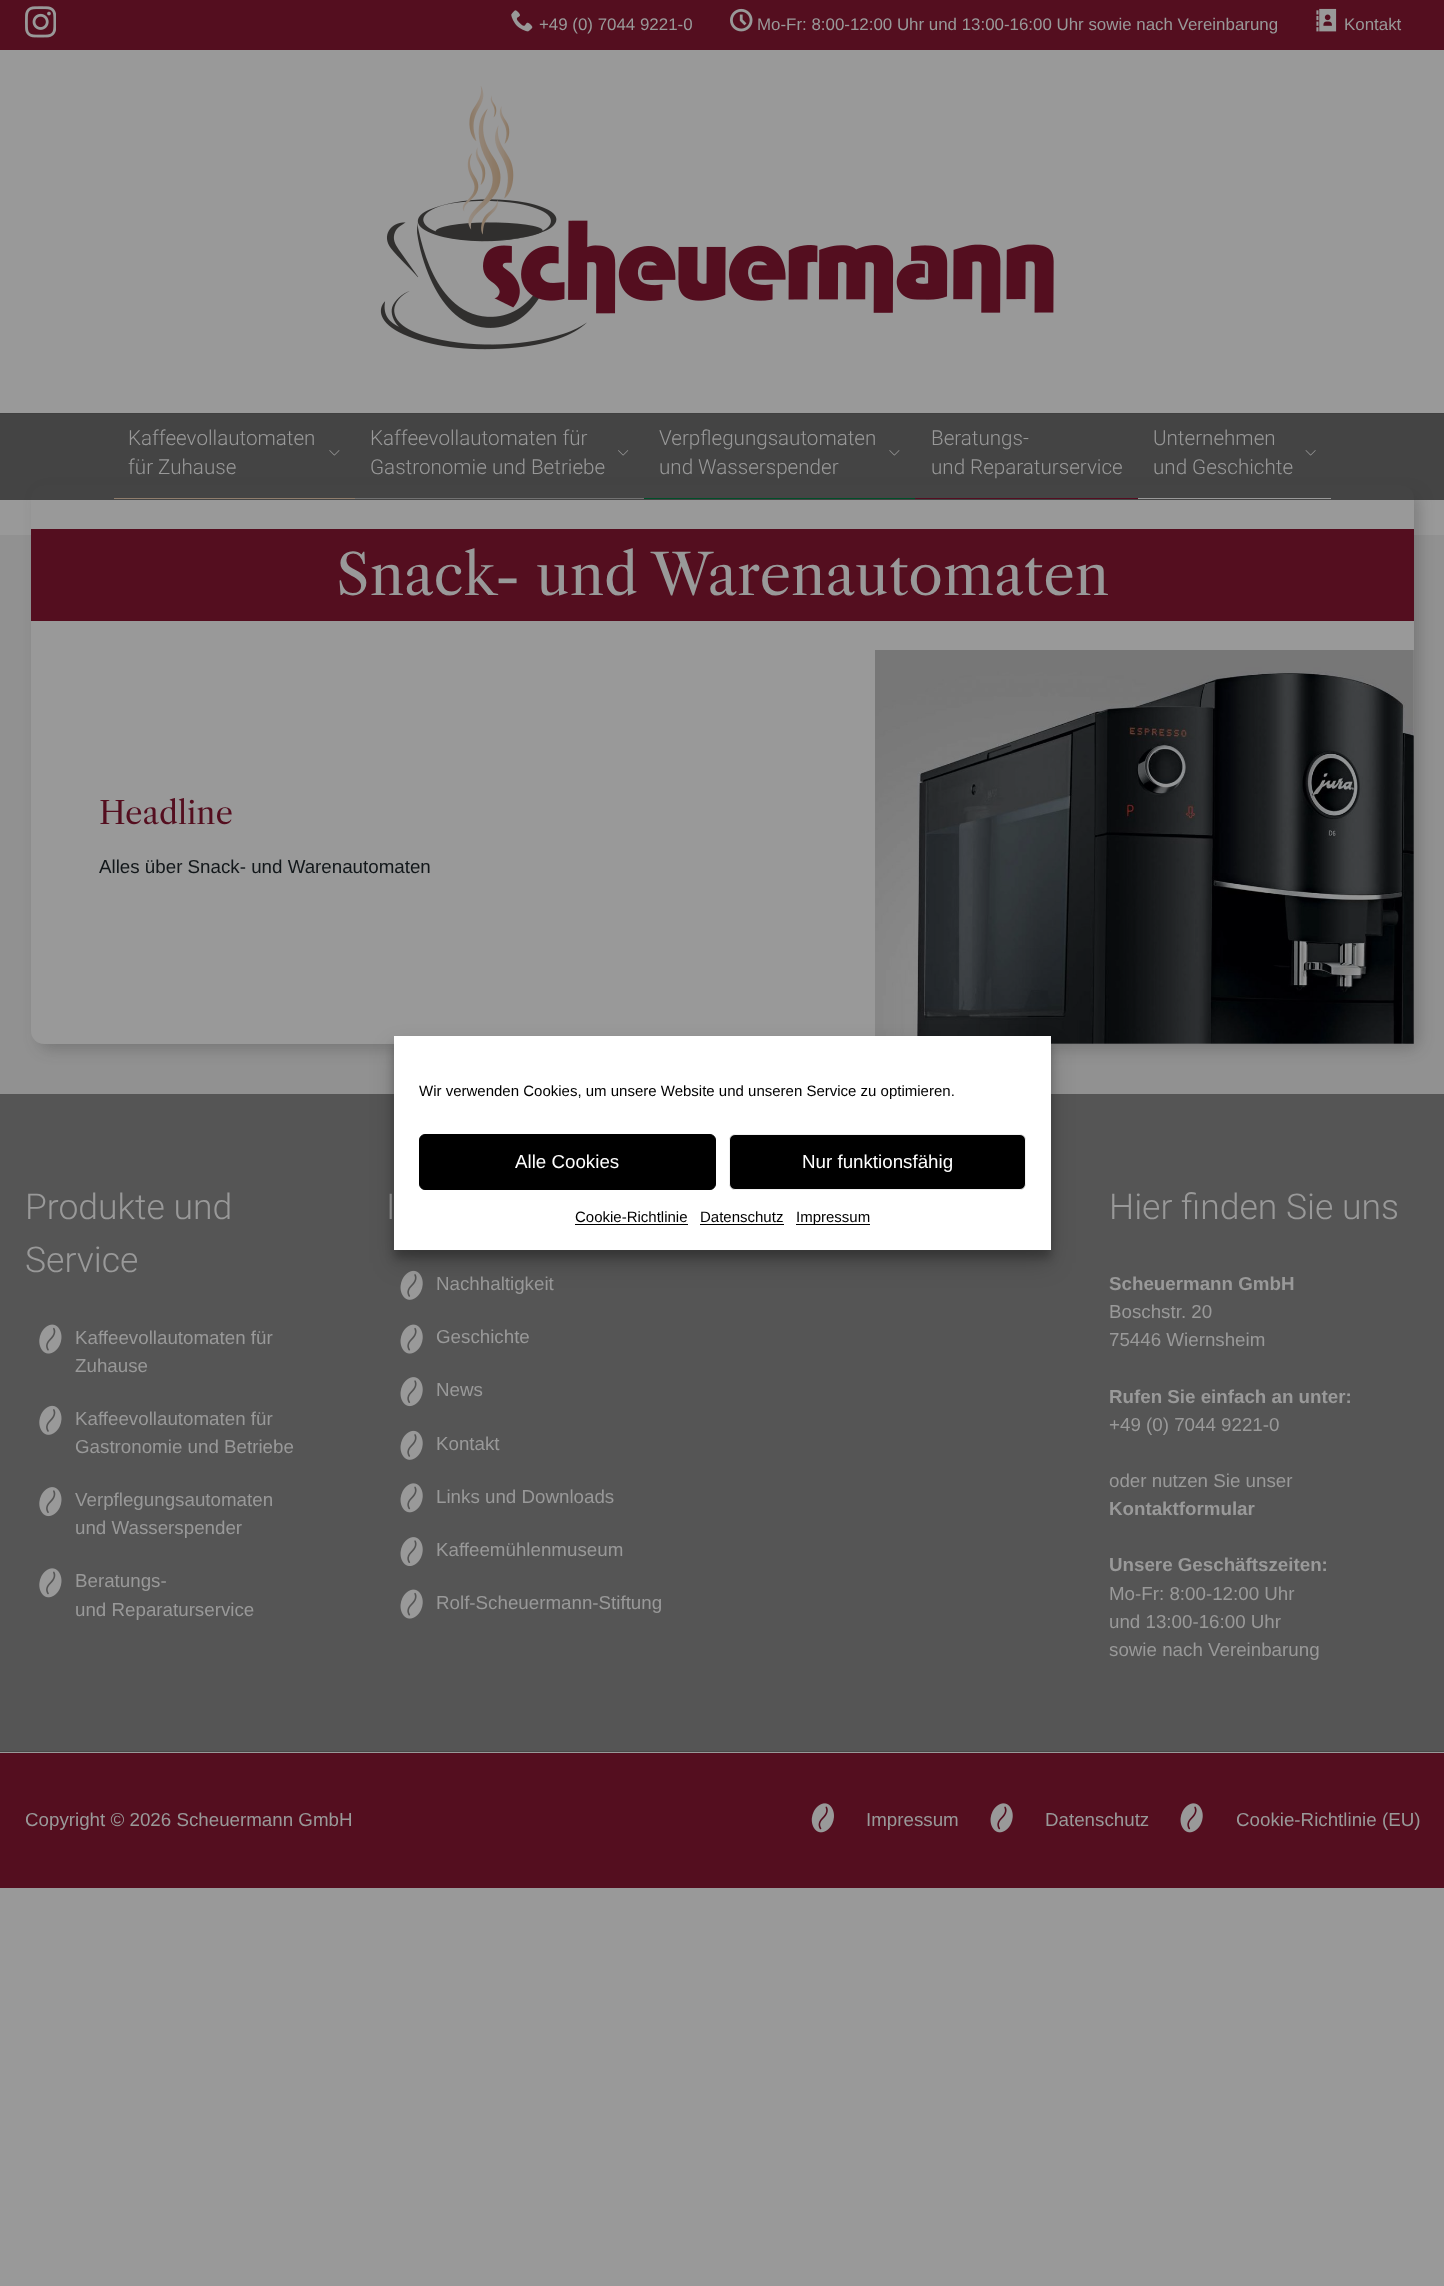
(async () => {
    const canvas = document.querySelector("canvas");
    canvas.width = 1444;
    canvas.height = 2286;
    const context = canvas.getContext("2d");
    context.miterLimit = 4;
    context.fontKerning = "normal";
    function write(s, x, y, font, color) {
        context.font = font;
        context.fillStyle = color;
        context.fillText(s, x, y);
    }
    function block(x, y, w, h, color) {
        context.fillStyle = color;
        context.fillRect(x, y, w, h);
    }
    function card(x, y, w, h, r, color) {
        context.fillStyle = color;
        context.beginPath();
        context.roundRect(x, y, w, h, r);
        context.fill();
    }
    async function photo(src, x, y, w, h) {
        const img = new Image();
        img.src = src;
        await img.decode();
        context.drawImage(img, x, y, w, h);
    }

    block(0, 0, 1444, 2286, "rgb(153, 153, 153)");
    block(0, 413, 1444, 1, "rgb(133, 133, 133)");
    block(0, 0, 1444, 50, "rgb(84, 14, 31)");
    await photo("media/1.png", 25, 6, 31, 32);
    await photo("media/2.png", 511, 10, 22, 22);
    write("+49 (0) 7044 9221-0", 539, 30, "16.9px Liberation Sans", "rgb(153, 153, 153)");
    await photo("media/3.png", 730, 8, 23, 24);
    write("Mo-Fr: 8:00-12:00 Uhr und 13:00-16:00 Uhr sowie nach Vereinbarung", 757, 30, "16.9px Liberation Sans", "rgb(153, 153, 153)");
    await photo("media/4.png", 1316, 8, 21, 24);
    write("Kontakt", 1344, 30, "16.9px Liberation Sans", "rgb(153, 153, 153)");
    await photo("media/5.png", 380, 86, 674, 264);
    block(0, 535, 1444, 559, "rgb(145, 145, 145)");
    context.fillStyle = "rgba(41, 41, 41, 0.25)";
    context.filter = "blur(7.5px)";
    context.beginPath();
    context.roundRect(39, 493, 1380, 556, 11);
    context.fill();
    context.filter = "none";
    card(31, 485, 1383, 559, 13, "rgb(153, 153, 153)");
    block(0, 413, 1444, 87, "rgba(46, 46, 46, 0.8)");
    write("Kaffeevollautomaten", 128, 445, "300 20.6px Roboto", "rgb(153, 153, 153)");
    await photo("media/6.png", 329, 450, 11, 6);
    write("für Zuhause", 128, 474, "300 20.6px Roboto", "rgb(153, 153, 153)");
    block(114, 498, 241, 1, "rgb(143, 125, 108)");
    write("Kaffeevollautomaten für", 370, 445, "300 20.6px Roboto", "rgb(153, 153, 153)");
    await photo("media/7.png", 618, 450, 11, 6);
    write("Gastronomie und Betriebe", 370, 474, "300 20.6px Roboto", "rgb(153, 153, 153)");
    block(355, 498, 289, 1, "rgb(113, 113, 113)");
    write("Verpflegungsautomaten", 659, 445, "300 20.6px Roboto", "rgb(153, 153, 153)");
    await photo("media/6.png", 889, 450, 11, 6);
    write("und Wasserspender", 659, 474, "300 20.6px Roboto", "rgb(153, 153, 153)");
    block(644, 498, 271, 1, "rgb(0, 79, 41)");
    write("Beratungs-", 931, 445, "300 20.6px Roboto", "rgb(153, 153, 153)");
    write("und Reparaturservice", 931, 474, "300 20.6px Roboto", "rgb(153, 153, 153)");
    block(915, 498, 223, 1, "rgb(85, 13, 33)");
    write("Unternehmen", 1153, 445, "300 20.6px Roboto", "rgb(153, 153, 153)");
    await photo("media/8.png", 1305, 450, 11, 6);
    write("und Geschichte", 1153, 474, "300 20.6px Roboto", "rgb(153, 153, 153)");
    block(1138, 498, 193, 1, "rgb(153, 153, 153)");
    block(31, 529, 1383, 92, "rgb(84, 14, 31)");
    write("Snack- und Warenautomaten", 336, 595, "56.25px Libre Caslon Text", "rgb(153, 153, 153)");
    write("Headline", 99, 824, "31.25px Libre Caslon Text", "rgb(84, 14, 31)");
    write("Alles über Snack- und Warenautomaten", 99, 873, "18.75px Liberation Sans", "rgb(18, 23, 26)");
    await photo("media/9.png", 875, 650, 539, 394);
    block(0, 1094, 1444, 657, "rgb(85, 85, 85)");
    write("Produkte und", 25, 1219, "300 35.5px Roboto", "rgb(153, 153, 153)");
    write("Service", 25, 1272, "300 35.5px Roboto", "rgb(153, 153, 153)");
    await photo("media/10.png", 39, 1324, 23, 30);
    write("Kaffeevollautomaten für", 75, 1344, "18.75px Liberation Sans", "rgb(153, 153, 153)");
    write("Zuhause", 75, 1372, "18.75px Liberation Sans", "rgb(153, 153, 153)");
    await photo("media/11.png", 39, 1405, 23, 30);
    write("Kaffeevollautomaten für", 75, 1425, "18.75px Liberation Sans", "rgb(153, 153, 153)");
    write("Gastronomie und Betriebe", 75, 1453, "18.75px Liberation Sans", "rgb(153, 153, 153)");
    await photo("media/12.png", 39, 1487, 23, 30);
    write("Verpflegungsautomaten", 75, 1506, "18.75px Liberation Sans", "rgb(153, 153, 153)");
    write("und Wasserspender", 75, 1534, "18.75px Liberation Sans", "rgb(153, 153, 153)");
    await photo("media/13.png", 39, 1568, 23, 30);
    write("Beratungs-", 75, 1587, "18.75px Liberation Sans", "rgb(153, 153, 153)");
    write("und Reparaturservice", 75, 1616, "18.75px Liberation Sans", "rgb(153, 153, 153)");
    write("I", 386, 1219, "300 35.5px Roboto", "rgb(153, 153, 153)");
    await photo("media/14.png", 400, 1270, 23, 30);
    write("Nachhaltigkeit", 436, 1290, "18.75px Liberation Sans", "rgb(153, 153, 153)");
    await photo("media/15.png", 400, 1324, 23, 30);
    write("Geschichte", 436, 1343, "18.75px Liberation Sans", "rgb(153, 153, 153)");
    await photo("media/16.png", 400, 1377, 23, 30);
    write("News", 436, 1396, "18.75px Liberation Sans", "rgb(153, 153, 153)");
    await photo("media/14.png", 400, 1430, 23, 30);
    write("Kontakt", 436, 1450, "18.75px Liberation Sans", "rgb(153, 153, 153)");
    await photo("media/17.png", 400, 1483, 23, 30);
    write("Links und Downloads", 436, 1503, "18.75px Liberation Sans", "rgb(153, 153, 153)");
    await photo("media/18.png", 400, 1537, 23, 29);
    write("Kaffeemühlenmuseum", 436, 1556, "18.75px Liberation Sans", "rgb(153, 153, 153)");
    await photo("media/15.png", 400, 1589, 23, 30);
    write("Rolf-Scheuermann-Stiftung", 436, 1609, "18.75px Liberation Sans", "rgb(153, 153, 153)");
    write("Hier finden Sie uns", 1109, 1219, "300 35.5px Roboto", "rgb(153, 153, 153)");
    write("Scheuermann GmbH", 1109, 1290, "bold 18.75px Liberation Sans", "rgb(153, 153, 153)");
    write("Boschstr. 20", 1109, 1318, "18.75px Liberation Sans", "rgb(153, 153, 153)");
    write("75446 Wiernsheim", 1109, 1346, "18.75px Liberation Sans", "rgb(153, 153, 153)");
    write("Rufen Sie einfach an unter:", 1109, 1403, "bold 18.75px Liberation Sans", "rgb(153, 153, 153)");
    write("+49 (0) 7044 9221-0", 1109, 1431, "18.75px Liberation Sans", "rgb(153, 153, 153)");
    write("oder nutzen Sie unser", 1109, 1487, "18.75px Liberation Sans", "rgb(153, 153, 153)");
    write("Kontaktformular", 1109, 1515, "bold 18.75px Liberation Sans", "rgb(153, 153, 153)");
    write("Unsere Geschäftszeiten:", 1109, 1571, "bold 18.75px Liberation Sans", "rgb(153, 153, 153)");
    write("Mo-Fr: 8:00-12:00 Uhr", 1109, 1600, "18.75px Liberation Sans", "rgb(153, 153, 153)");
    write("und 13:00-16:00 Uhr", 1109, 1628, "18.75px Liberation Sans", "rgb(153, 153, 153)");
    write("sowie nach Vereinbarung", 1109, 1656, "18.75px Liberation Sans", "rgb(153, 153, 153)");
    block(0, 1751, 1444, 1, "rgb(73, 73, 73)");
    block(0, 1753, 1444, 135, "rgb(84, 14, 31)");
    write("Copyright © 2026 Scheuermann GmbH", 25, 1826, "18.75px Liberation Sans", "rgb(153, 153, 153)");
    await photo("media/19.png", 811, 1803, 23, 30);
    write("Impressum", 866, 1826, "18.75px Liberation Sans", "rgb(153, 153, 153)");
    await photo("media/20.png", 990, 1803, 23, 30);
    write("Datenschutz", 1045, 1826, "18.75px Liberation Sans", "rgb(153, 153, 153)");
    await photo("media/20.png", 1180, 1803, 23, 30);
    write("Cookie-Richtlinie (EU)", 1236, 1826, "18.75px Liberation Sans", "rgb(153, 153, 153)");
    context.fillStyle = "rgba(0, 0, 0, 0.23)";
    context.filter = "blur(4px)";
    context.beginPath();
    context.rect(394, 1044, 657, 214);
    context.fill();
    context.filter = "none";
    context.fillStyle = "rgba(0, 0, 0, 0.19)";
    context.filter = "blur(12.5px)";
    context.beginPath();
    context.rect(394, 1049, 657, 214);
    context.fill();
    context.filter = "none";
    block(394, 1036, 657, 214, "rgb(255, 255, 255)");
    write("Wir verwenden Cookies, um unsere Website und unseren Service zu optimieren.", 419, 1096, "15px Liberation Sans", "rgb(0, 0, 0)");
    context.beginPath();
    context.roundRect(419.5, 1134.5, 296, 55, 5.5);
    context.fill();
    context.strokeStyle = "rgb(0, 0, 0)";
    context.stroke();
    write("Alle Cookies", 515, 1168, "18.75px Liberation Sans", "rgb(255, 255, 255)");
    context.fillStyle = "rgb(0, 0, 0)";
    context.beginPath();
    context.roundRect(729.5, 1134.5, 296, 55, 5.5);
    context.fill();
    context.strokeStyle = "rgb(241, 241, 241)";
    context.stroke();
    write("Nur funktionsfähig", 802, 1168, "18.75px Liberation Sans", "rgb(255, 255, 255)");
    write("Cookie-Richtlinie", 575, 1222, "15px Liberation Sans", "rgb(0, 0, 0)");
    block(575, 1224, 113, 1, "rgb(0, 0, 0)");
    write("Datenschutz", 700, 1222, "15px Liberation Sans", "rgb(0, 0, 0)");
    block(700, 1224, 84, 1, "rgb(0, 0, 0)");
    block(796, 1224, 74, 1, "rgb(0, 0, 0)");
    write("Impressum", 796, 1222, "15px Liberation Sans", "rgb(0, 0, 0)");
})();
